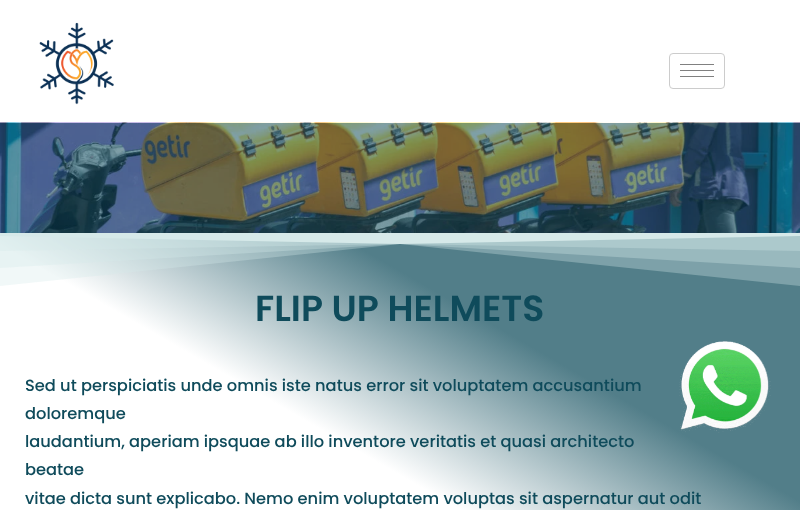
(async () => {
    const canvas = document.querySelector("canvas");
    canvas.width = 800;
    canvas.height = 510;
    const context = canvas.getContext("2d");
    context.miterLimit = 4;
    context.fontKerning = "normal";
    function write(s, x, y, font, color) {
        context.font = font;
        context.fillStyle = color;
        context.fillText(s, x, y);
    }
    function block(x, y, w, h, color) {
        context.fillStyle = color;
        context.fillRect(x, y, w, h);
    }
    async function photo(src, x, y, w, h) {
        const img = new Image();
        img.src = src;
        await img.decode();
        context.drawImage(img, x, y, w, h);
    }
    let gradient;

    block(0, 0, 800, 510, "rgb(255, 255, 255)");
    await photo("media/1.png", 39, 22, 75, 83);
    context.beginPath();
    context.roundRect(669.5, 53.5, 55, 35, 3.5);
    context.strokeStyle = "rgb(204, 204, 204)";
    context.stroke();
    block(680, 64, 34, 1, "rgb(128, 128, 128)");
    block(680, 70, 34, 1, "rgb(128, 128, 128)");
    block(680, 76, 34, 1, "rgb(128, 128, 128)");
    await photo("media/2.png", 0, 122, 800, 111);
    gradient = context.createLinearGradient(676, 162, 124, 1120);
    gradient.addColorStop(0.21, "rgb(82, 126, 137)");
    gradient.addColorStop(0.37, "rgb(255, 255, 255)");
    context.fillStyle = gradient;
    context.fillRect(0, 236, 800, 274);
    context.save();
    context.beginPath();
    context.rect(0, 233, 800, 55);
    context.clip();
    context.fillStyle = "rgba(214, 233, 233, 0.33)";
    context.beginPath();
    context.moveTo(-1, 232);
    context.lineTo(-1, 286);
    context.lineTo(400, 244);
    context.lineTo(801, 286);
    context.lineTo(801, 232);
    context.closePath();
    context.fill();
    context.beginPath();
    context.moveTo(-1, 232);
    context.lineTo(-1, 268);
    context.lineTo(400, 244);
    context.lineTo(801, 268);
    context.lineTo(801, 232);
    context.closePath();
    context.fill();
    context.beginPath();
    context.moveTo(-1, 232);
    context.lineTo(-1, 251);
    context.lineTo(400, 244);
    context.lineTo(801, 251);
    context.lineTo(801, 232);
    context.closePath();
    context.fill();
    context.fillStyle = "rgb(214, 233, 233)";
    context.beginPath();
    context.moveTo(-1, 232);
    context.lineTo(-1, 236);
    context.lineTo(400, 244);
    context.lineTo(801, 236);
    context.lineTo(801, 232);
    context.closePath();
    context.fill();
    context.restore();
    write("FLIP UP HELMETS", 255, 321, "600 36.25px Poppins", "rgb(15, 75, 91)");
    write("Sed ut perspiciatis unde omnis iste natus error sit voluptatem accusantium", 25, 391, "500 16.25px Poppins", "rgb(15, 75, 91)");
    write("doloremque", 25, 419, "500 16.25px Poppins", "rgb(15, 75, 91)");
    write("laudantium, aperiam ipsquae ab illo inventore veritatis et quasi architecto", 25, 447, "500 16.25px Poppins", "rgb(15, 75, 91)");
    write("beatae", 25, 475, "500 16.25px Poppins", "rgb(15, 75, 91)");
    write("vitae dicta sunt explicabo. Nemo enim voluptatem voluptas sit aspernatur aut odit", 25, 504, "500 16.25px Poppins", "rgb(15, 75, 91)");
    await photo("media/3.png", 679, 341, 92, 92);
})();
